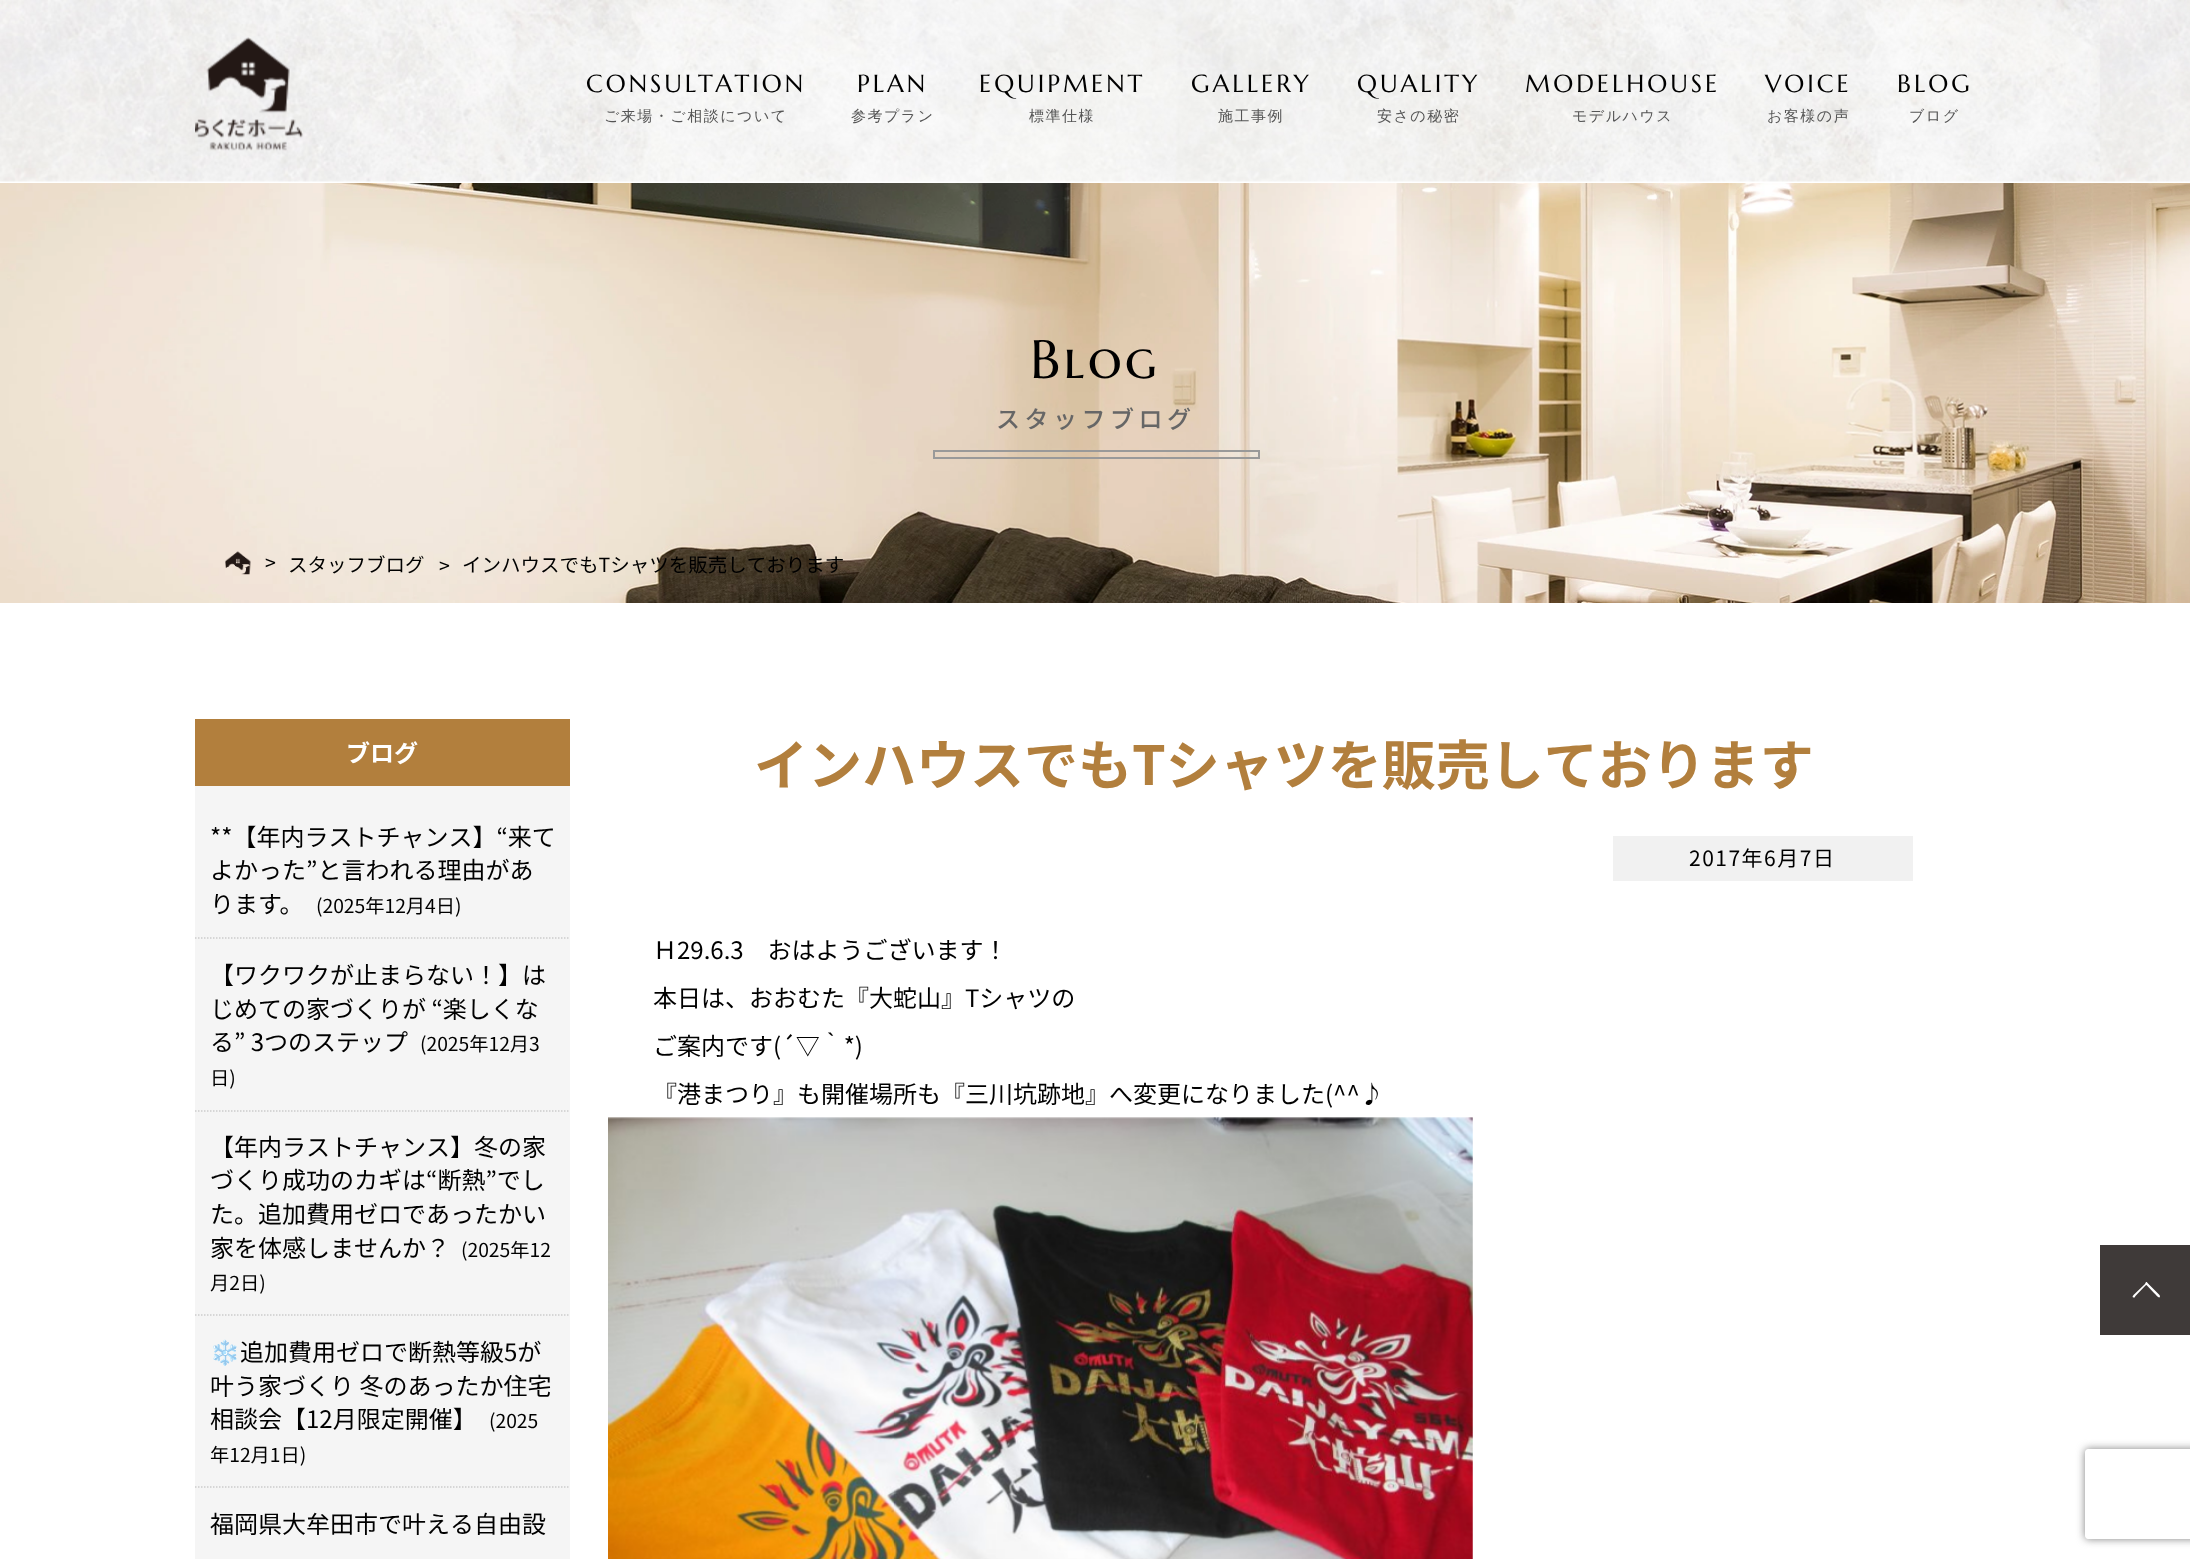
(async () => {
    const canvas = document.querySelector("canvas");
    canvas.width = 2190;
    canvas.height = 1559;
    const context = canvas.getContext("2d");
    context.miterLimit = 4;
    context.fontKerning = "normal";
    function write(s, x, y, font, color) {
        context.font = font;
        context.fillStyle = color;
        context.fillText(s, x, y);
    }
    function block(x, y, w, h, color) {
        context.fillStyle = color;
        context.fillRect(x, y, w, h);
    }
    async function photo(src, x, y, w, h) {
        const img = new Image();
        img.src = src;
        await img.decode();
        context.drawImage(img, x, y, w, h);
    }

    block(0, 0, 2190, 1559, "rgb(255, 255, 255)");
    await photo("media/1.png", 0, 0, 2190, 182);
    await photo("media/2.png", 195, 37, 108, 114);
    context.letterSpacing = "3px";
    write("CONSULTATION", 586, 92, "24.75px Marcellus SC", "rgb(0, 0, 0)");
    context.letterSpacing = "1.5px";
    write("ご来場・ご相談について", 604, 121, "500 15px WenQuanYi Zen Hei", "rgb(85, 85, 85)");
    context.letterSpacing = "3px";
    write("PLAN", 857, 92, "24.75px Marcellus SC", "rgb(0, 0, 0)");
    context.letterSpacing = "1.5px";
    write("参考プラン", 851, 121, "500 15px WenQuanYi Zen Hei", "rgb(85, 85, 85)");
    context.letterSpacing = "3px";
    write("EQUIPMENT", 979, 92, "24.75px Marcellus SC", "rgb(0, 0, 0)");
    context.letterSpacing = "1.5px";
    write("標準仕様", 1029, 121, "500 15px WenQuanYi Zen Hei", "rgb(85, 85, 85)");
    context.letterSpacing = "3px";
    write("GALLERY", 1191, 92, "24.75px Marcellus SC", "rgb(0, 0, 0)");
    context.letterSpacing = "1.5px";
    write("施工事例", 1218, 121, "500 15px WenQuanYi Zen Hei", "rgb(85, 85, 85)");
    context.letterSpacing = "3px";
    write("QUALITY", 1357, 92, "24.75px Marcellus SC", "rgb(0, 0, 0)");
    context.letterSpacing = "1.5px";
    write("安さの秘密", 1377, 121, "500 15px WenQuanYi Zen Hei", "rgb(85, 85, 85)");
    context.letterSpacing = "3px";
    write("MODELHOUSE", 1525, 92, "24.75px Marcellus SC", "rgb(0, 0, 0)");
    context.letterSpacing = "1.5px";
    write("モデルハウス", 1572, 121, "500 15px WenQuanYi Zen Hei", "rgb(85, 85, 85)");
    context.letterSpacing = "3px";
    write("VOICE", 1765, 92, "24.75px Marcellus SC", "rgb(0, 0, 0)");
    context.letterSpacing = "1.5px";
    write("お客様の声", 1767, 121, "500 15px WenQuanYi Zen Hei", "rgb(85, 85, 85)");
    context.letterSpacing = "3px";
    write("BLOG", 1897, 92, "24.75px Marcellus SC", "rgb(0, 0, 0)");
    context.letterSpacing = "1.5px";
    write("ブログ", 1909, 121, "500 15px WenQuanYi Zen Hei", "rgb(85, 85, 85)");
    await photo("media/3.png", 0, 183, 2190, 420);
    context.letterSpacing = "3px";
    write("Blog", 1030, 378, "54px Marcellus SC", "rgb(0, 0, 0)");
    context.letterSpacing = "4.5px";
    write("スタッフブログ", 996, 428, "500 24px Noto Sans JP", "rgb(102, 102, 102)");
    context.strokeStyle = "rgb(153, 153, 153)";
    context.lineWidth = 2;
    context.strokeRect(934, 451, 325, 7);
    await photo("media/4.png", 225, 551, 26, 24);
    context.letterSpacing = "0px";
    write(">", 265, 570, "19.5px Noto Sans JP", "rgb(0, 0, 0)");
    write("スタッフブログ", 288, 572, "19.5px Noto Sans JP", "rgb(0, 0, 0)");
    write(">", 439, 573, "19.5px Noto Sans JP", "rgb(0, 0, 0)");
    write("インハウスでもTシャツを販売しております", 462, 572, "19.5px Noto Sans JP", "rgb(0, 0, 0)");
    block(195, 786, 375, 773, "rgb(245, 245, 245)");
    block(195, 719, 375, 67, "rgb(178, 127, 61)");
    write("ブログ", 346, 762, "bold 24px Noto Sans JP", "rgb(255, 255, 255)");
    context.beginPath();
    context.moveTo(195, 938);
    context.lineTo(570, 938);
    context.strokeStyle = "rgb(204, 204, 204)";
    context.lineWidth = 1.5;
    context.setLineDash([1.5, 1.5]);
    context.stroke();
    write("**【年内ラストチャンス】“来て", 210, 846, "24px Noto Sans JP", "rgb(0, 0, 0)");
    write("よかった”と言われる理由があ", 210, 879, "24px Noto Sans JP", "rgb(0, 0, 0)");
    write("ります。", 210, 913, "24px Noto Sans JP", "rgb(0, 0, 0)");
    write("(2025年12月4日)", 316, 913, "19.25px Noto Sans JP", "rgb(0, 0, 0)");
    context.beginPath();
    context.moveTo(195, 1111);
    context.lineTo(570, 1111);
    context.stroke();
    write("【ワクワクが止まらない！】は", 210, 984, "24px Noto Sans JP", "rgb(0, 0, 0)");
    write("じめての家づくりが “楽しくな", 210, 1018, "24px Noto Sans JP", "rgb(0, 0, 0)");
    write("る” 3つのステップ", 210, 1051, "24px Noto Sans JP", "rgb(0, 0, 0)");
    write("(2025年12月3", 420, 1051, "19.25px Noto Sans JP", "rgb(0, 0, 0)");
    write("日)", 210, 1085, "19.25px Noto Sans JP", "rgb(0, 0, 0)");
    context.beginPath();
    context.moveTo(195, 1315);
    context.lineTo(570, 1315);
    context.stroke();
    write("【年内ラストチャンス】冬の家", 210, 1156, "24px Noto Sans JP", "rgb(0, 0, 0)");
    write("づくり成功のカギは“断熱”でし", 210, 1189, "24px Noto Sans JP", "rgb(0, 0, 0)");
    write("た。追加費用ゼロであったかい", 210, 1223, "24px Noto Sans JP", "rgb(0, 0, 0)");
    write("家を体感しませんか？", 210, 1257, "24px Noto Sans JP", "rgb(0, 0, 0)");
    write("(2025年12", 461, 1257, "19.25px Noto Sans JP", "rgb(0, 0, 0)");
    write("月2日)", 210, 1290, "19.25px Noto Sans JP", "rgb(0, 0, 0)");
    context.beginPath();
    context.moveTo(195, 1487);
    context.lineTo(570, 1487);
    context.stroke();
    write("❄️", 210, 1361, "24px Noto Color Emoji", "rgb(0, 0, 0)");
    write("追加費用ゼロで断熱等級5が", 240, 1361, "24px Noto Sans JP", "rgb(0, 0, 0)");
    write("叶う家づくり 冬のあったか住宅", 210, 1395, "24px Noto Sans JP", "rgb(0, 0, 0)");
    write("相談会【12月限定開催】", 210, 1428, "24px Noto Sans JP", "rgb(0, 0, 0)");
    write("(2025", 489, 1428, "19.25px Noto Sans JP", "rgb(0, 0, 0)");
    write("年12月1日)", 210, 1462, "19.25px Noto Sans JP", "rgb(0, 0, 0)");
    write("福岡県大牟田市で叶える自由設", 210, 1533, "24px Noto Sans JP", "rgb(0, 0, 0)");
    write("インハウスでもTシャツを販売しております", 754, 785, "bold 54px Noto Sans JP", "rgb(178, 127, 61)");
    block(1613, 836, 300, 45, "rgb(241, 241, 241)");
    context.letterSpacing = "1.5px";
    write("2017年6月7日", 1689, 866, "21px Noto Sans JP", "rgb(0, 0, 0)");
    context.letterSpacing = "0px";
    write("Ｈ29.6.3　おはようございます！", 653, 959, "24px Noto Sans JP", "rgb(0, 0, 0)");
    write("本日は、おおむた『大蛇山』Tシャツの", 653, 1007, "24px Noto Sans JP", "rgb(0, 0, 0)");
    write("ご案内です(´▽｀*)", 653, 1055, "24px Noto Sans JP", "rgb(0, 0, 0)");
    write("『港まつり』も開催場所も『三川坑跡地』へ変更になりました(^^♪", 653, 1103, "24px Noto Sans JP", "rgb(0, 0, 0)");
    await photo("media/5.png", 608, 1117, 865, 442);
    block(2100, 1245, 90, 90, "rgb(63, 58, 57)");
    context.fillStyle = "rgb(255, 255, 255)";
    context.beginPath();
    context.moveTo(2134, 1297.5);
    context.bezierCurveTo(2134, 1297.5, 2136, 1297, 2135, 1296.5);
    context.lineTo(2145.5, 1285.5);
    context.lineTo(2146.5, 1285);
    context.lineTo(2154, 1293);
    context.bezierCurveTo(2155.5, 1294, 2157.5, 1297.5, 2159.5, 1297.5);
    context.lineTo(2160, 1296.5);
    context.bezierCurveTo(2160, 1297.5, 2160, 1295.5, 2159.5, 1295);
    context.lineTo(2148.5, 1284);
    context.bezierCurveTo(2147, 1282.5, 2147, 1282, 2146.5, 1282);
    context.bezierCurveTo(2146, 1282, 2145.5, 1282.5, 2145, 1284);
    context.lineTo(2133.5, 1295);
    context.bezierCurveTo(2133, 1295.5, 2132.5, 1297, 2132.5, 1296.5);
    context.bezierCurveTo(2132.5, 1297, 2133, 1297.5, 2134, 1297.5);
    context.closePath();
    context.fill("evenodd");
    context.save();
    context.beginPath();
    context.moveTo(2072, 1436);
    context.lineTo(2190, 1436);
    context.lineTo(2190, 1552);
    context.lineTo(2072, 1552);
    context.closePath();
    context.moveTo(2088, 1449);
    context.lineTo(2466, 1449);
    context.bezierCurveTo(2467.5, 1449, 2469, 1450.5, 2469, 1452);
    context.lineTo(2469, 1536);
    context.bezierCurveTo(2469, 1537.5, 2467.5, 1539, 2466, 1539);
    context.lineTo(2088, 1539);
    context.bezierCurveTo(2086.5, 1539, 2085, 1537.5, 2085, 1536);
    context.lineTo(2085, 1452);
    context.bezierCurveTo(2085, 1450.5, 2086.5, 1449, 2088, 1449);
    context.closePath();
    context.clip("evenodd");
    context.fillStyle = "rgb(128, 128, 128)";
    context.filter = "blur(4px)";
    context.beginPath();
    context.roundRect(2085, 1449, 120, 90, 3);
    context.fill();
    context.filter = "none";
    context.restore();
})();
